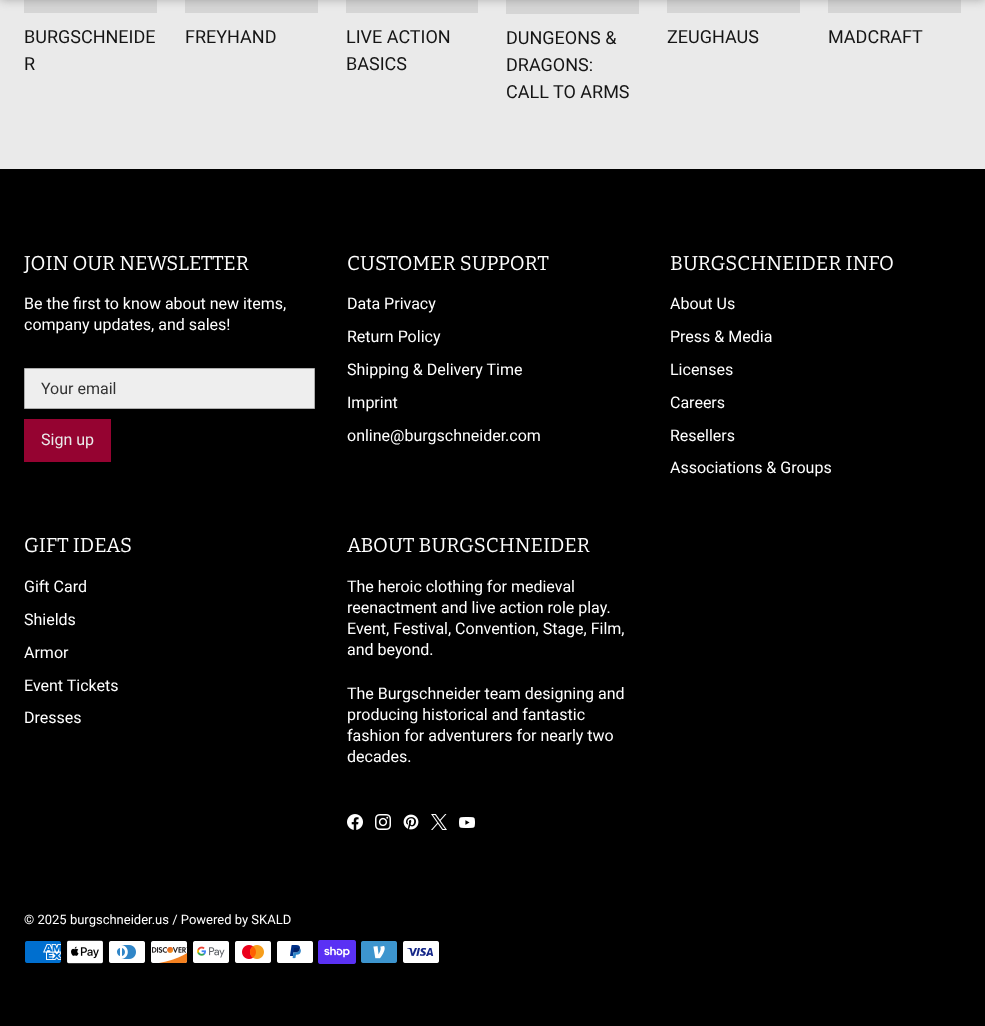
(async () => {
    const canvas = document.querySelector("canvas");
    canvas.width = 985;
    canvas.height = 1026;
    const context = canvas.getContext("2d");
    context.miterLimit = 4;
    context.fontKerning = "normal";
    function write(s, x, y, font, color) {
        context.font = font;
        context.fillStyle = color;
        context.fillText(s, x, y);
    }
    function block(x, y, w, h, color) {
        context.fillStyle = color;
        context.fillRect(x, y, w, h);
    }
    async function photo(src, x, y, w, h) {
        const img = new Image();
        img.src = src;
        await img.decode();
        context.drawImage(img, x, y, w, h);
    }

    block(0, 0, 985, 1026, "rgb(234, 234, 234)");
    block(24, 0, 133, 13, "rgb(213, 213, 213)");
    block(185, 0, 133, 13, "rgb(213, 213, 213)");
    block(346, 0, 132, 13, "rgb(213, 213, 213)");
    block(506, 0, 133, 14, "rgb(213, 213, 213)");
    block(667, 0, 133, 13, "rgb(213, 213, 213)");
    block(828, 0, 133, 13, "rgb(213, 213, 213)");
    context.fillStyle = "rgba(112, 112, 112, 0.5)";
    context.filter = "blur(5px)";
    context.beginPath();
    context.rect(0, -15, 985, 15);
    context.fill();
    context.filter = "none";
    write("BURGSCHNEIDE", 24, 43, "18px Roboto", "rgb(21, 21, 21)");
    write("R", 24, 70, "18px Roboto", "rgb(21, 21, 21)");
    write("FREYHAND", 185, 43, "18px Roboto", "rgb(21, 21, 21)");
    write("LIVE ACTION", 346, 43, "18px Roboto", "rgb(21, 21, 21)");
    write("BASICS", 346, 70, "18px Roboto", "rgb(21, 21, 21)");
    write("DUNGEONS &", 506, 44, "18px Roboto", "rgb(21, 21, 21)");
    write("DRAGONS:", 506, 71, "18px Roboto", "rgb(21, 21, 21)");
    write("CALL TO ARMS", 506, 98, "18px Roboto", "rgb(21, 21, 21)");
    write("ZEUGHAUS", 667, 43, "18px Roboto", "rgb(21, 21, 21)");
    write("MADCRAFT", 828, 43, "18px Roboto", "rgb(21, 21, 21)");
    block(0, 169, 985, 857, "rgb(0, 0, 0)");
    write("JOIN OUR NEWSLETTER", 24, 270, "20px Bitter", "rgb(255, 255, 255)");
    write("Be the first to know about new items,", 24, 309, "16px Roboto", "rgb(255, 255, 255)");
    write("company updates, and sales!", 24, 330, "16px Roboto", "rgb(255, 255, 255)");
    context.fillStyle = "rgb(238, 238, 238)";
    context.beginPath();
    context.rect(24.5, 368.5, 290, 40);
    context.fill();
    context.strokeStyle = "rgb(173, 173, 173)";
    context.stroke();
    write("Your email", 41, 394, "16px Roboto", "rgb(51, 51, 51)");
    block(24, 419, 87, 43, "rgb(149, 3, 49)");
    write("Sign up", 41, 445, "16px Roboto", "rgb(234, 234, 234)");
    write("CUSTOMER SUPPORT", 347, 270, "20px Bitter", "rgb(255, 255, 255)");
    write("Data Privacy", 347, 309, "16px Roboto", "rgb(255, 255, 255)");
    write("Return Policy", 347, 342, "16px Roboto", "rgb(255, 255, 255)");
    write("Shipping & Delivery Time", 347, 375, "16px Roboto", "rgb(255, 255, 255)");
    write("Imprint", 347, 408, "16px Roboto", "rgb(255, 255, 255)");
    write("online@burgschneider.com", 347, 441, "16px Roboto", "rgb(255, 255, 255)");
    write("BURGSCHNEIDER INFO", 670, 270, "20px Bitter", "rgb(255, 255, 255)");
    write("About Us", 670, 309, "16px Roboto", "rgb(255, 255, 255)");
    write("Press & Media", 670, 342, "16px Roboto", "rgb(255, 255, 255)");
    write("Licenses", 670, 375, "16px Roboto", "rgb(255, 255, 255)");
    write("Careers", 670, 408, "16px Roboto", "rgb(255, 255, 255)");
    write("Resellers", 670, 441, "16px Roboto", "rgb(255, 255, 255)");
    write("Associations & Groups", 670, 473, "16px Roboto", "rgb(255, 255, 255)");
    write("GIFT IDEAS", 24, 552, "20px Bitter", "rgb(255, 255, 255)");
    write("Gift Card", 24, 592, "16px Roboto", "rgb(255, 255, 255)");
    write("Shields", 24, 625, "16px Roboto", "rgb(255, 255, 255)");
    write("Armor", 24, 658, "16px Roboto", "rgb(255, 255, 255)");
    write("Event Tickets", 24, 691, "16px Roboto", "rgb(255, 255, 255)");
    write("Dresses", 24, 723, "16px Roboto", "rgb(255, 255, 255)");
    write("ABOUT BURGSCHNEIDER", 347, 552, "20px Bitter", "rgb(255, 255, 255)");
    write("The heroic clothing for medieval", 347, 592, "16px Roboto", "rgb(255, 255, 255)");
    write("reenactment and live action role play.", 347, 613, "16px Roboto", "rgb(255, 255, 255)");
    write("Event, Festival, Convention, Stage, Film,", 347, 634, "16px Roboto", "rgb(255, 255, 255)");
    write("and beyond.", 347, 655, "16px Roboto", "rgb(255, 255, 255)");
    write("The Burgschneider team designing and", 347, 699, "16px Roboto", "rgb(255, 255, 255)");
    write("producing historical and fantastic", 347, 720, "16px Roboto", "rgb(255, 255, 255)");
    write("fashion for adventurers for nearly two", 347, 741, "16px Roboto", "rgb(255, 255, 255)");
    write("decades.", 347, 762, "16px Roboto", "rgb(255, 255, 255)");
    await photo("media/1.png", 347, 814, 16, 16);
    await photo("media/2.png", 375, 814, 16, 16);
    await photo("media/3.png", 403, 814, 16, 16);
    await photo("media/4.png", 431, 814, 16, 16);
    await photo("media/5.png", 459, 817, 16, 11);
    write("© 2025 burgschneider.us / Powered by SKALD", 24, 924, "13px Roboto", "rgb(255, 255, 255)");
    await photo("media/6.png", 25, 941, 36, 22);
    await photo("media/7.png", 67, 940, 36, 24);
    await photo("media/8.png", 109, 941, 36, 22);
    await photo("media/9.png", 151, 941, 37, 22);
    await photo("media/10.png", 193, 941, 36, 22);
    await photo("media/11.png", 235, 941, 36, 22);
    await photo("media/12.png", 277, 941, 36, 22);
    await photo("media/13.png", 318, 940, 38, 24);
    await photo("media/14.png", 361, 941, 36, 22);
    await photo("media/15.png", 403, 941, 36, 22);
})();
